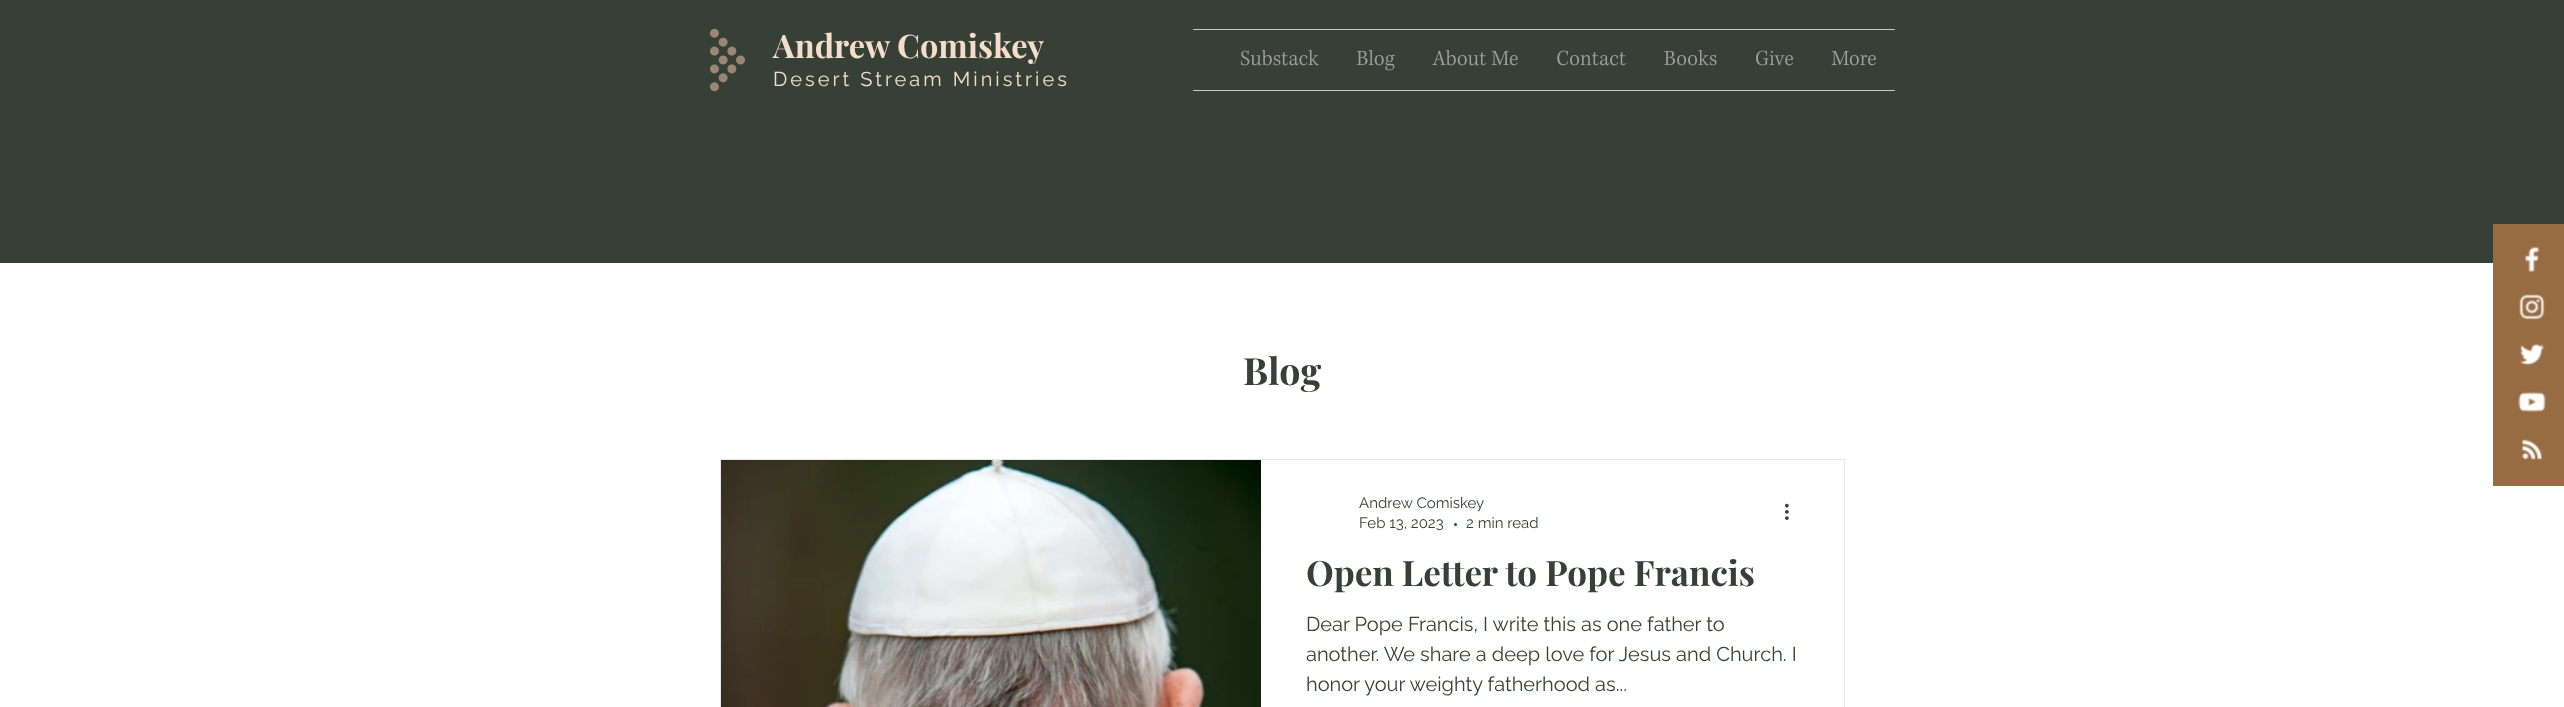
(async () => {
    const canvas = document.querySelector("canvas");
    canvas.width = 2564;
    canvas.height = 707;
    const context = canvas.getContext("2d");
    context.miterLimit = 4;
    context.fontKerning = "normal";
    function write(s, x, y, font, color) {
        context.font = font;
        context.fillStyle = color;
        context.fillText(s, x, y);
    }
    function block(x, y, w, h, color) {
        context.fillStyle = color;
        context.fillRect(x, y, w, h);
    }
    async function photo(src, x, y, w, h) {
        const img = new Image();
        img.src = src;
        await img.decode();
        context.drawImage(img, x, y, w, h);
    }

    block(0, 0, 2564, 707, "rgb(255, 255, 255)");
    block(0, 0, 2564, 263, "rgb(54, 64, 55)");
    await photo("media/1.png", 710, 28, 35, 64);
    write("Andrew Comiskey", 773, 58, "bold 32.5px Playfair Display", "rgb(244, 222, 201)");
    block(1193, 29, 702, 1, "rgb(202, 202, 202)");
    block(1193, 90, 702, 1, "rgb(202, 202, 202)");
    await photo("media/2.png", 1241, 50, 78, 16);
    await photo("media/3.png", 1356, 50, 39, 21);
    await photo("media/4.png", 1432, 50, 86, 16);
    await photo("media/5.png", 1557, 50, 69, 16);
    await photo("media/6.png", 1664, 50, 53, 16);
    await photo("media/7.png", 1756, 50, 37, 16);
    await photo("media/8.png", 1831, 50, 45, 16);
    context.letterSpacing = "3px";
    write("Desert Stream Ministries", 773, 86, "20px Raleway", "rgb(244, 222, 201)");
    context.letterSpacing = "0px";
    write("Blog", 1243, 385, "bold 37.5px Playfair Display", "rgb(54, 64, 55)");
    context.strokeStyle = "rgb(232, 230, 230)";
    context.strokeRect(720.5, 459.5, 1124, 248);
    await photo("media/9.png", 721, 460, 540, 247);
    write("Andrew Comiskey", 1359, 508, "15px Raleway", "rgb(54, 64, 55)");
    write("Feb 13, 2023", 1359, 528, "15px Raleway", "rgb(54, 64, 55)");
    context.beginPath();
    context.arc(1455.5, 524.5, 1.5, 0, Math.PI * 2);
    context.fill();
    write("2 min read", 1466, 528, "15px Raleway", "rgb(54, 64, 55)");
    await photo("media/10.png", 1785, 503, 4, 17);
    write("Open Letter to Pope Francis", 1306, 586, "bold 35px Playfair Display", "rgb(54, 64, 55)");
    write("Dear Pope Francis, I write this as one father to", 1306, 631, "20px Raleway", "rgb(54, 64, 55)");
    write("another. We share a deep love for Jesus and Church. I", 1306, 661, "20px Raleway", "rgb(54, 64, 55)");
    write("honor your weighty fatherhood as...", 1306, 691, "20px Raleway", "rgb(54, 64, 55)");
    block(2493, 224, 71, 262, "rgb(152, 108, 67)");
    await photo("media/11.png", 2524, 246, 16, 26);
    await photo("media/12.png", 2519, 294, 26, 26);
    await photo("media/13.png", 2520, 343, 25, 23);
    await photo("media/14.png", 2518, 391, 28, 21);
    await photo("media/15.png", 2522, 439, 21, 21);
})();
